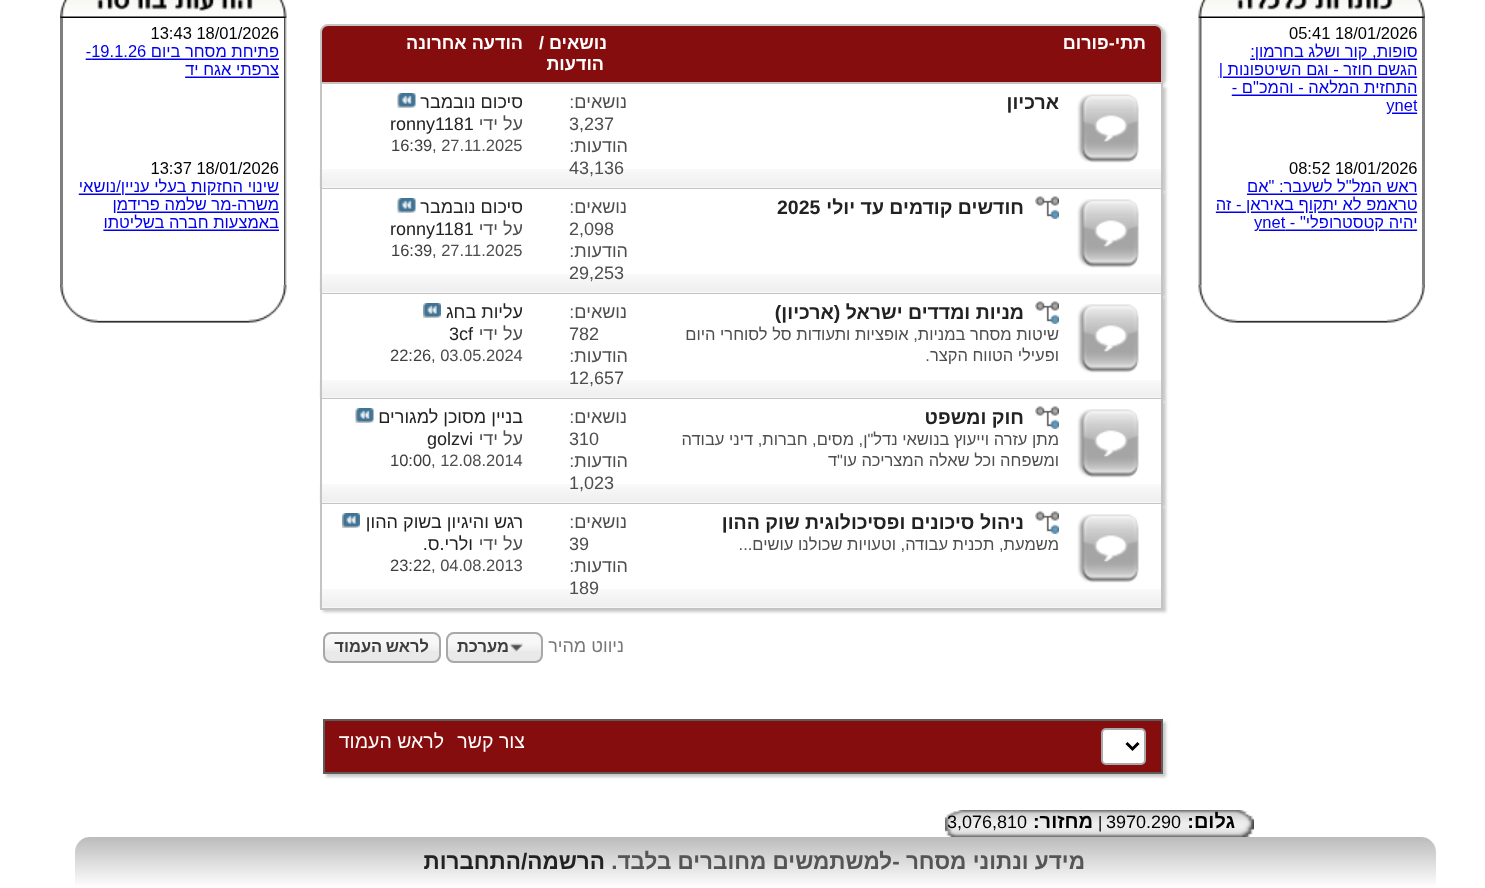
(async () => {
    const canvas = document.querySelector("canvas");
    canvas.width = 1485;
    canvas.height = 888;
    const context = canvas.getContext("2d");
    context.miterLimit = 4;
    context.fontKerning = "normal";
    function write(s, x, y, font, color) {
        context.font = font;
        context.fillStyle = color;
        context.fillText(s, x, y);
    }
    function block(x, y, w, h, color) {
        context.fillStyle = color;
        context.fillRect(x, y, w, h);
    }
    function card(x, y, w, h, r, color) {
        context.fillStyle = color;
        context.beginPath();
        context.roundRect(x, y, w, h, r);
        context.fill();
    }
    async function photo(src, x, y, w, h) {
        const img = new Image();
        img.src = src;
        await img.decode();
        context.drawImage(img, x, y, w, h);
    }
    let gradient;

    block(0, 0, 1485, 888, "rgb(255, 255, 255)");
    await photo("media/1.png", 1198, 0, 227, 18);
    block(1422, 18, 3, 267, "rgb(127, 127, 127)");
    await photo("media/2.png", 1215, 27, 203, 204);
    await photo("media/3.png", 1198, 18, 4, 267);
    await photo("media/4.png", 1198, 285, 227, 38);
    context.fillStyle = "rgb(200, 200, 200)";
    context.filter = "blur(1.5px)";
    context.beginPath();
    context.roundRect(323, 27, 843, 60, 8);
    context.fill();
    context.filter = "none";
    context.fillStyle = "rgb(134, 13, 13)";
    context.beginPath();
    context.roundRect(321, 25, 841, 58, [7, 7, 0, 0]);
    context.fill();
    context.strokeStyle = "rgb(196, 196, 196)";
    context.lineWidth = 2;
    context.stroke();
    context.direction = "rtl";
    write("תתי-פורום", 1146, 49, "bold 18px Liberation Sans", "rgb(255, 255, 255)");
    write("נושאים /", 607, 49, "bold 18px Liberation Sans", "rgb(255, 255, 255)");
    write("הודעות", 604, 70, "bold 18px Liberation Sans", "rgb(255, 255, 255)");
    write("הודעה אחרונה", 523, 49, "bold 18px Liberation Sans", "rgb(255, 255, 255)");
    context.fillStyle = "rgb(200, 200, 200)";
    context.filter = "blur(1.5px)";
    context.beginPath();
    context.rect(323, 87, 843, 105);
    context.fill();
    context.filter = "none";
    block(322, 84, 839, 104, "rgb(255, 255, 255)");
    await photo("media/5.png", 319, 169, 842, 19);
    block(1161, 84, 2, 105, "rgb(196, 196, 196)");
    block(320, 188, 843, 1, "rgb(196, 196, 196)");
    block(320, 84, 2, 105, "rgb(196, 196, 196)");
    await photo("media/6.png", 1077, 94, 62, 69);
    write("ארכיון", 1059, 109, "bold 19.5px Liberation Sans", "rgb(34, 34, 34)");
    write("נושאים:", 627, 108, "18px Liberation Sans", "rgb(78, 78, 78)");
    context.direction = "ltr";
    write("3,237", 569, 130, "18px Liberation Sans", "rgb(78, 78, 78)");
    context.direction = "rtl";
    write("הודעות:", 628, 152, "18px Liberation Sans", "rgb(78, 78, 78)");
    context.direction = "ltr";
    write("43,136", 569, 174, "18px Liberation Sans", "rgb(78, 78, 78)");
    context.direction = "rtl";
    write("סיכום נובמבר", 523, 108, "18px Liberation Sans", "rgb(34, 34, 34)");
    await photo("media/7.png", 397, 93, 19, 15);
    write("על ידי", 523, 130, "18px Liberation Sans", "rgb(78, 78, 78)");
    context.direction = "ltr";
    write("ronny1181", 390, 130, "18px Liberation Sans", "rgb(34, 34, 34)");
    write(", 27.11.2025", 432, 151, "16.5px Liberation Sans", "rgb(78, 78, 78)");
    write("16:39", 391, 151, "16.5px Liberation Sans", "rgb(62, 62, 62)");
    context.fillStyle = "rgb(200, 200, 200)";
    context.filter = "blur(1.5px)";
    context.beginPath();
    context.rect(323, 192, 843, 105);
    context.fill();
    context.filter = "none";
    block(322, 189, 839, 104, "rgb(255, 255, 255)");
    await photo("media/5.png", 319, 274, 842, 19);
    block(1161, 189, 2, 105, "rgb(196, 196, 196)");
    block(320, 293, 843, 1, "rgb(196, 196, 196)");
    block(320, 189, 2, 105, "rgb(196, 196, 196)");
    await photo("media/6.png", 1077, 199, 62, 69);
    await photo("media/8.png", 1035, 196, 24, 23);
    context.direction = "rtl";
    write("חודשים קודמים עד יולי", 1024, 214, "bold 19.5px Liberation Sans", "rgb(34, 34, 34)");
    context.direction = "ltr";
    write("2025", 777, 214, "bold 19.5px Liberation Sans", "rgb(34, 34, 34)");
    context.direction = "rtl";
    write("נושאים:", 627, 213, "18px Liberation Sans", "rgb(78, 78, 78)");
    context.direction = "ltr";
    write("2,098", 569, 235, "18px Liberation Sans", "rgb(78, 78, 78)");
    context.direction = "rtl";
    write("הודעות:", 628, 257, "18px Liberation Sans", "rgb(78, 78, 78)");
    context.direction = "ltr";
    write("29,253", 569, 279, "18px Liberation Sans", "rgb(78, 78, 78)");
    context.direction = "rtl";
    write("סיכום נובמבר", 523, 213, "18px Liberation Sans", "rgb(34, 34, 34)");
    await photo("media/7.png", 397, 198, 19, 15);
    write("על ידי", 523, 235, "18px Liberation Sans", "rgb(78, 78, 78)");
    context.direction = "ltr";
    write("ronny1181", 390, 235, "18px Liberation Sans", "rgb(34, 34, 34)");
    write(", 27.11.2025", 432, 256, "16.5px Liberation Sans", "rgb(78, 78, 78)");
    write("16:39", 391, 256, "16.5px Liberation Sans", "rgb(62, 62, 62)");
    context.fillStyle = "rgb(200, 200, 200)";
    context.filter = "blur(1.5px)";
    context.beginPath();
    context.rect(323, 297, 843, 105);
    context.fill();
    context.filter = "none";
    block(322, 294, 839, 104, "rgb(255, 255, 255)");
    await photo("media/9.png", 319, 380, 842, 18);
    block(1161, 294, 2, 105, "rgb(196, 196, 196)");
    block(320, 398, 843, 1, "rgb(196, 196, 196)");
    block(320, 294, 2, 105, "rgb(196, 196, 196)");
    await photo("media/6.png", 1077, 304, 62, 69);
    await photo("media/8.png", 1035, 301, 24, 23);
    context.direction = "rtl";
    write("מניות ומדדים ישראל (ארכיון)", 1024, 319, "bold 19.5px Liberation Sans", "rgb(34, 34, 34)");
    write("שיטות מסחר במניות, אופציות ותעודות סל לסוחרי היום", 1059, 340, "16.5px Liberation Sans", "rgb(78, 78, 78)");
    write("ופעילי הטווח הקצר.", 1059, 361, "16.5px Liberation Sans", "rgb(78, 78, 78)");
    write("נושאים:", 627, 318, "18px Liberation Sans", "rgb(78, 78, 78)");
    context.direction = "ltr";
    write("782", 569, 340, "18px Liberation Sans", "rgb(78, 78, 78)");
    context.direction = "rtl";
    write("הודעות:", 628, 362, "18px Liberation Sans", "rgb(78, 78, 78)");
    context.direction = "ltr";
    write("12,657", 569, 384, "18px Liberation Sans", "rgb(78, 78, 78)");
    context.direction = "rtl";
    write("עליות בחג", 523, 318, "18px Liberation Sans", "rgb(34, 34, 34)");
    await photo("media/10.png", 423, 303, 18, 15);
    write("על ידי", 523, 340, "18px Liberation Sans", "rgb(78, 78, 78)");
    context.direction = "ltr";
    write("3cf", 449, 340, "18px Liberation Sans", "rgb(34, 34, 34)");
    write(", 03.05.2024", 431, 361, "16.5px Liberation Sans", "rgb(78, 78, 78)");
    write("22:26", 390, 361, "16.5px Liberation Sans", "rgb(62, 62, 62)");
    context.fillStyle = "rgb(200, 200, 200)";
    context.filter = "blur(1.5px)";
    context.beginPath();
    context.rect(323, 402, 843, 105);
    context.fill();
    context.filter = "none";
    block(322, 399, 839, 104, "rgb(255, 255, 255)");
    await photo("media/5.png", 319, 484, 842, 19);
    block(1161, 399, 2, 105, "rgb(196, 196, 196)");
    block(320, 503, 843, 1, "rgb(196, 196, 196)");
    block(320, 399, 2, 105, "rgb(196, 196, 196)");
    await photo("media/6.png", 1077, 409, 62, 69);
    await photo("media/8.png", 1035, 406, 24, 23);
    context.direction = "rtl";
    write("חוק ומשפט", 1024, 424, "bold 19.5px Liberation Sans", "rgb(34, 34, 34)");
    write("מתן עזרה וייעוץ בנושאי נדל\"ן, מסים, חברות, דיני עבודה", 1059, 445, "16.5px Liberation Sans", "rgb(78, 78, 78)");
    write("ומשפחה וכל שאלה המצריכה עו\"ד", 1059, 466, "16.5px Liberation Sans", "rgb(78, 78, 78)");
    write("נושאים:", 627, 423, "18px Liberation Sans", "rgb(78, 78, 78)");
    context.direction = "ltr";
    write("310", 569, 445, "18px Liberation Sans", "rgb(78, 78, 78)");
    context.direction = "rtl";
    write("הודעות:", 628, 467, "18px Liberation Sans", "rgb(78, 78, 78)");
    context.direction = "ltr";
    write("1,023", 569, 489, "18px Liberation Sans", "rgb(78, 78, 78)");
    context.direction = "rtl";
    write("בניין מסוכן למגורים", 523, 423, "18px Liberation Sans", "rgb(34, 34, 34)");
    await photo("media/7.png", 355, 408, 19, 15);
    write("על ידי", 523, 445, "18px Liberation Sans", "rgb(78, 78, 78)");
    context.direction = "ltr";
    write("golzvi", 427, 445, "18px Liberation Sans", "rgb(34, 34, 34)");
    write(", 12.08.2014", 431, 466, "16.5px Liberation Sans", "rgb(78, 78, 78)");
    write("10:00", 390, 466, "16.5px Liberation Sans", "rgb(62, 62, 62)");
    context.fillStyle = "rgb(200, 200, 200)";
    context.filter = "blur(1.5px)";
    context.beginPath();
    context.rect(323, 507, 843, 105);
    context.fill();
    context.filter = "none";
    block(322, 504, 839, 104, "rgb(255, 255, 255)");
    await photo("media/5.png", 319, 589, 842, 19);
    block(1161, 504, 2, 105, "rgb(196, 196, 196)");
    block(320, 608, 843, 2, "rgb(196, 196, 196)");
    block(320, 504, 2, 105, "rgb(196, 196, 196)");
    await photo("media/6.png", 1077, 514, 62, 69);
    await photo("media/8.png", 1035, 511, 24, 23);
    context.direction = "rtl";
    write("ניהול סיכונים ופסיכולוגית שוק ההון", 1024, 529, "bold 19.5px Liberation Sans", "rgb(34, 34, 34)");
    write("משמעת, תכנית עבודה, וטעויות שכולנו עושים...", 1059, 550, "16.5px Liberation Sans", "rgb(78, 78, 78)");
    write("נושאים:", 627, 528, "18px Liberation Sans", "rgb(78, 78, 78)");
    context.direction = "ltr";
    write("39", 569, 550, "18px Liberation Sans", "rgb(78, 78, 78)");
    context.direction = "rtl";
    write("הודעות:", 628, 572, "18px Liberation Sans", "rgb(78, 78, 78)");
    context.direction = "ltr";
    write("189", 569, 594, "18px Liberation Sans", "rgb(78, 78, 78)");
    context.direction = "rtl";
    write("רגש והיגיון בשוק ההון", 523, 528, "18px Liberation Sans", "rgb(34, 34, 34)");
    await photo("media/10.png", 342, 513, 18, 15);
    write("על ידי", 523, 550, "18px Liberation Sans", "rgb(78, 78, 78)");
    write("ולרי.ס.", 473, 550, "18px Liberation Sans", "rgb(34, 34, 34)");
    context.direction = "ltr";
    write(", 04.08.2013", 431, 571, "16.5px Liberation Sans", "rgb(78, 78, 78)");
    write("23:22", 390, 571, "16.5px Liberation Sans", "rgb(62, 62, 62)");
    await photo("media/11.png", 60, 0, 227, 18);
    await photo("media/12.png", 284, 18, 3, 267);
    await photo("media/13.png", 78, 27, 201, 204);
    block(60, 18, 3, 267, "rgb(127, 127, 127)");
    await photo("media/14.png", 60, 285, 227, 38);
    card(446, 632, 97, 31, 8, "rgb(233, 233, 233)");
    await photo("media/15.png", 446, 633, 97, 18);
    card(323, 632, 118, 31, 8, "rgb(233, 233, 233)");
    await photo("media/16.png", 323, 633, 118, 18);
    context.direction = "rtl";
    write("ניווט מהיר", 624, 652, "18px Liberation Sans", "rgb(119, 119, 119)");
    context.beginPath();
    context.roundRect(447, 633, 95, 29, 7);
    context.strokeStyle = "rgb(168, 168, 168)";
    context.stroke();
    await photo("media/17.png", 509, 643, 15, 10);
    write("מערכת", 509, 652, "bold 16.5px Liberation Sans", "rgb(62, 62, 62)");
    context.beginPath();
    context.roundRect(324, 633, 116, 29, 7);
    context.stroke();
    context.wordSpacing = "-1px";
    write("לראש העמוד", 429, 652, "bold 16.5px Liberation Sans", "rgb(62, 62, 62)");
    context.fillStyle = "rgb(200, 200, 200)";
    context.filter = "blur(1.5px)";
    context.beginPath();
    context.rect(326, 722, 840, 55);
    context.fill();
    context.filter = "none";
    context.fillStyle = "rgb(134, 13, 13)";
    context.beginPath();
    context.rect(324, 720, 838, 53);
    context.fill();
    context.strokeStyle = "rgb(93, 93, 94)";
    context.stroke();
    context.fillStyle = "rgb(255, 255, 255)";
    context.beginPath();
    context.roundRect(1102, 729, 43, 35, 4);
    context.fill();
    context.strokeStyle = "rgb(167, 169, 171)";
    context.stroke();
    context.beginPath();
    context.moveTo(1126.5, 743);
    context.lineTo(1132.5, 749);
    context.lineTo(1138.5, 743);
    context.strokeStyle = "rgb(0, 0, 0)";
    context.lineWidth = 3;
    context.stroke();
    context.wordSpacing = "0px";
    write("צור קשר", 525, 748, "19.5px Liberation Sans", "rgb(255, 255, 255)");
    write("לראש העמוד", 444, 748, "19.5px Liberation Sans", "rgb(255, 255, 255)");
    await photo("media/18.png", 945, 810, 309, 27);
    write("גלום:", 1235, 828, "bold 20px Liberation Sans", "rgb(0, 0, 0)");
    context.direction = "ltr";
    write("3970.290", 1106, 828, "18px Liberation Sans", "rgb(0, 0, 0)");
    write("|", 1098, 828, "16.5px Liberation Sans", "rgb(0, 0, 0)");
    context.direction = "rtl";
    write("מחזור:", 1093, 828, "bold 20px Liberation Sans", "rgb(0, 0, 0)");
    context.direction = "ltr";
    write("3,076,810", 947, 828, "18px Liberation Sans", "rgb(0, 0, 0)");
    gradient = context.createLinearGradient(755, 837, 755, 888);
    gradient.addColorStop(0, "rgb(187, 187, 187)");
    gradient.addColorStop(1, "rgb(255, 255, 255)");
    context.fillStyle = gradient;
    context.beginPath();
    context.roundRect(75, 837, 1361, 51, [15, 15, 0, 0]);
    context.fill();
    context.direction = "rtl";
    write("מידע ונתוני מסחר -למשתמשים מחוברים בלבד.", 1085, 869, "bold 22.5px Liberation Sans", "rgb(85, 85, 85)");
    write("הרשמה/התחברות", 605, 869, "bold 22.5px Liberation Sans", "rgb(34, 34, 34)");
})();
